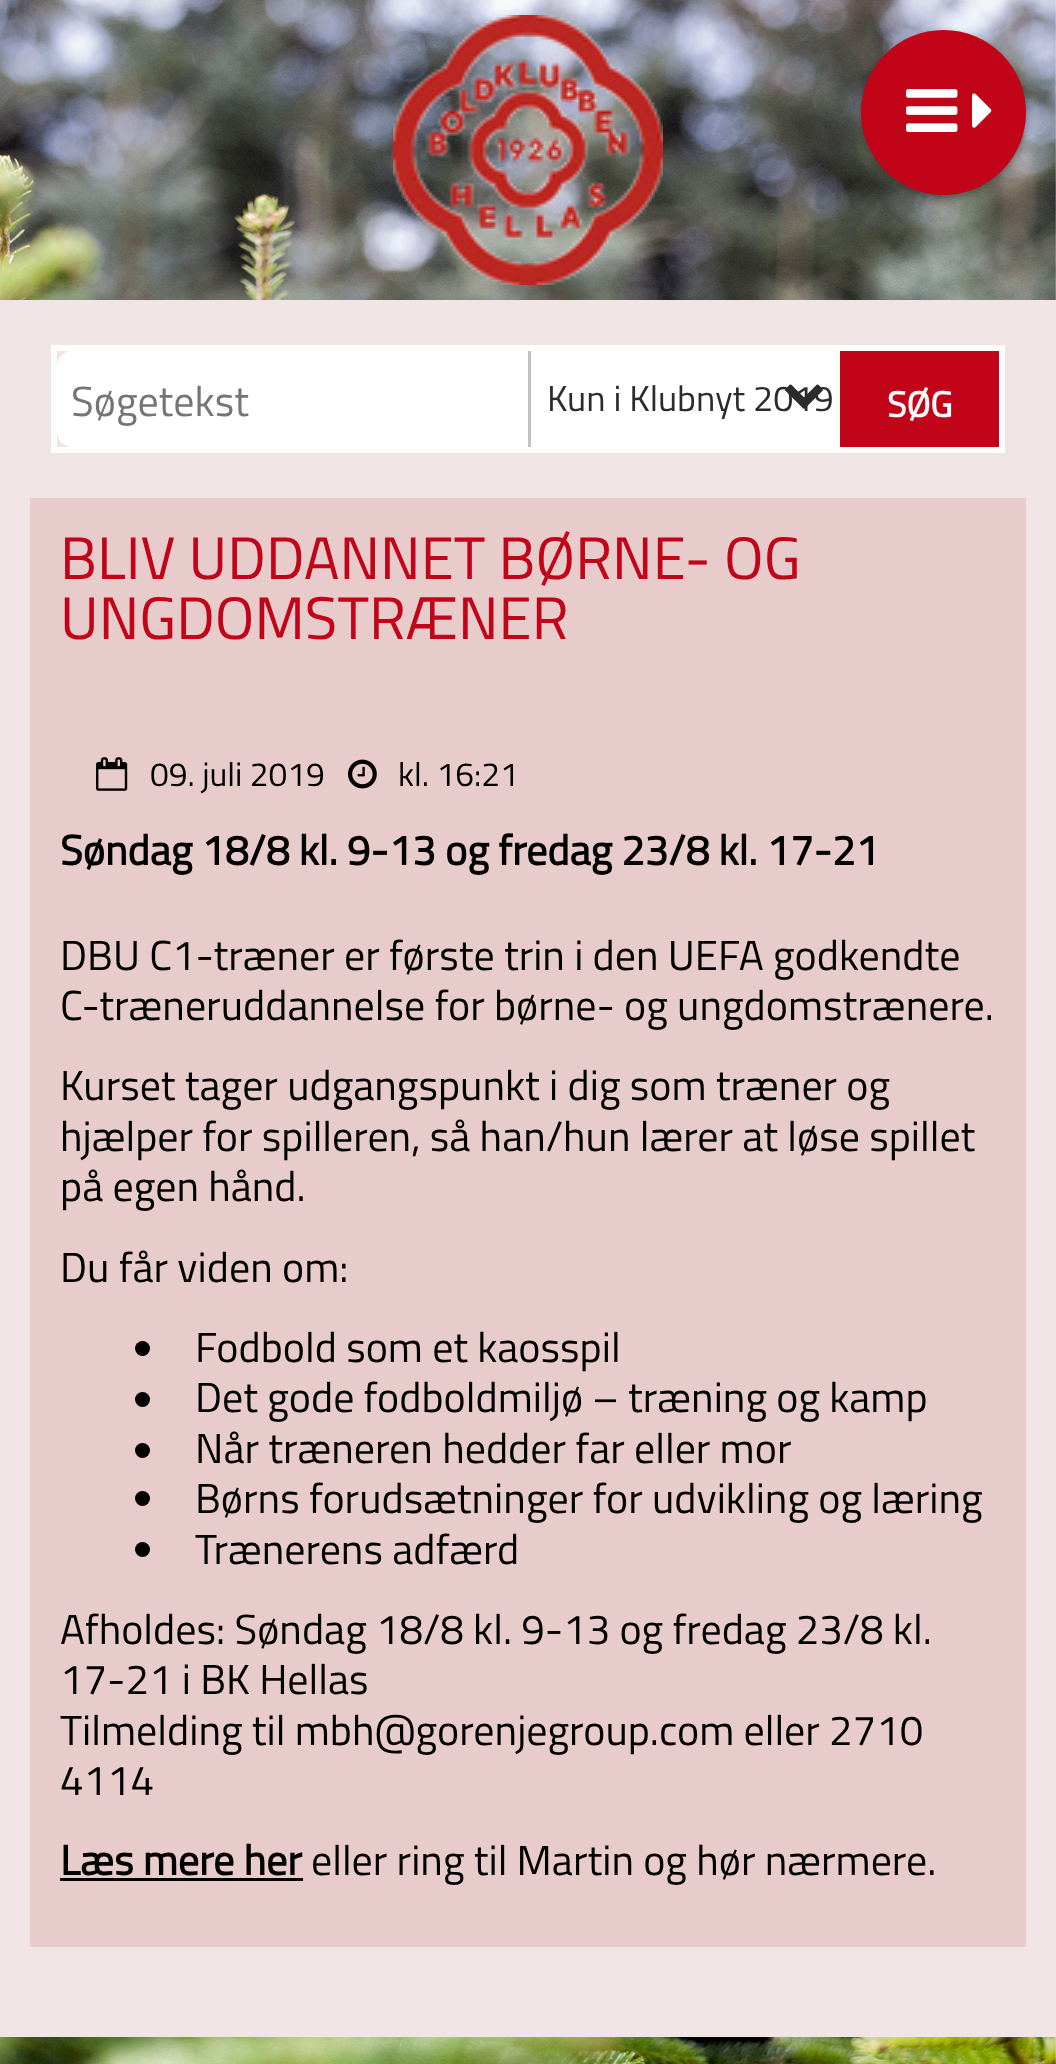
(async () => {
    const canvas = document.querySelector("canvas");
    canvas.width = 1056;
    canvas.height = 2064;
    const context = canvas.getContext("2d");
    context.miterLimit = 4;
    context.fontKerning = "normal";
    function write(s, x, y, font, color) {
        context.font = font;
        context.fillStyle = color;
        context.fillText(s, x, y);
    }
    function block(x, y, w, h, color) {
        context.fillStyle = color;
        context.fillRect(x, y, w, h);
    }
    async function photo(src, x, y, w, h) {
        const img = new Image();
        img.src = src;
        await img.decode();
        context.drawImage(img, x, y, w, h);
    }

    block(0, 0, 1056, 2064, "rgb(255, 255, 255)");
    await photo("media/1.png", 0, 0, 1056, 2064);
    await photo("media/2.png", 393, 15, 270, 270);
    context.fillStyle = "rgba(0, 0, 0, 0.24)";
    context.filter = "blur(3px)";
    context.beginPath();
    context.roundRect(861, 33, 165, 165, 82.5);
    context.fill();
    context.filter = "none";
    context.fillStyle = "rgba(0, 0, 0, 0.12)";
    context.filter = "blur(4.5px)";
    context.beginPath();
    context.roundRect(861, 33, 165, 165, 82.5);
    context.fill();
    context.filter = "none";
    context.fillStyle = "rgb(194, 4, 24)";
    context.beginPath();
    context.arc(943.5, 112.5, 82.5, 0, Math.PI * 2);
    context.fill();
    await photo("media/3.png", 906, 89, 52, 43);
    await photo("media/4.png", 972, 93, 20, 35);
    block(0, 300, 1056, 1737, "rgb(241, 228, 228)");
    context.strokeStyle = "rgb(255, 255, 255)";
    context.lineWidth = 6;
    context.strokeRect(54, 348, 948, 102);
    context.fillStyle = "rgb(255, 255, 255)";
    context.beginPath();
    context.roundRect(57, 351, 483, 96, [15, 0, 0, 15]);
    context.fill();
    write("Søgetekst", 71, 416, "42px Titillium Web", "rgb(117, 117, 117)");
    block(540, 351, 300, 96, "rgb(255, 255, 255)");
    block(528, 351, 3, 96, "rgb(194, 194, 194)");
    write("Kun i Klubnyt 2019", 547, 411, "36px Titillium Web", "rgb(44, 44, 44)");
    await photo("media/5.png", 785, 384, 38, 25);
    block(840, 351, 159, 96, "rgb(194, 4, 24)");
    write("SØG", 887, 417, "bold 36px Titillium Web", "rgb(255, 255, 255)");
    block(30, 498, 996, 1449, "rgb(232, 203, 203)");
    write("BLIV UDDANNET BØRNE- OG", 60, 579, "60px Titillium Web", "rgb(194, 4, 24)");
    write("UNGDOMSTRÆNER", 60, 639, "60px Titillium Web", "rgb(194, 4, 24)");
    await photo("media/6.png", 96, 757, 32, 34);
    write("09. juli 2019", 150, 786, "33.5px Titillium Web", "rgb(0, 0, 0)");
    await photo("media/7.png", 348, 759, 29, 30);
    write("kl. 16:21", 398, 786, "33.5px Titillium Web", "rgb(0, 0, 0)");
    write("Søndag 18/8 kl. 9-13 og fredag 23/8 kl. 17-21", 60, 865, "bold 42px Titillium Web", "rgb(0, 0, 0)");
    write("DBU C1-træner er første trin i den UEFA godkendte", 60, 970, "42px Titillium Web", "rgb(0, 0, 0)");
    write("C-træneruddannelse for børne- og ungdomstrænere.", 60, 1020, "42px Titillium Web", "rgb(0, 0, 0)");
    write("Kurset tager udgangspunkt i dig som træner og", 60, 1100, "42px Titillium Web", "rgb(0, 0, 0)");
    write("hjælper for spilleren, så han/hun lærer at løse spillet", 60, 1151, "42px Titillium Web", "rgb(0, 0, 0)");
    write("på egen hånd.", 60, 1201, "42px Titillium Web", "rgb(0, 0, 0)");
    write("Du får viden om:", 60, 1282, "42px Titillium Web", "rgb(0, 0, 0)");
    context.beginPath();
    context.arc(142.5, 1348.5, 7.5, 0, Math.PI * 2);
    context.fill();
    write("Fodbold som et kaosspil", 195, 1362, "42px Titillium Web", "rgb(0, 0, 0)");
    context.beginPath();
    context.arc(142.5, 1399.5, 7.5, 0, Math.PI * 2);
    context.fill();
    write("Det gode fodboldmiljø – træning og kamp", 195, 1412, "42px Titillium Web", "rgb(0, 0, 0)");
    context.beginPath();
    context.arc(142.5, 1450.5, 7.5, 0, Math.PI * 2);
    context.fill();
    write("Når træneren hedder far eller mor", 195, 1463, "42px Titillium Web", "rgb(0, 0, 0)");
    context.beginPath();
    context.arc(142.5, 1498.5, 7.5, 0, Math.PI * 2);
    context.fill();
    write("Børns forudsætninger for udvikling og læring", 195, 1513, "42px Titillium Web", "rgb(0, 0, 0)");
    context.beginPath();
    context.arc(142.5, 1549.5, 7.5, 0, Math.PI * 2);
    context.fill();
    write("Trænerens adfærd", 195, 1564, "42px Titillium Web", "rgb(0, 0, 0)");
    write("Afholdes: Søndag 18/8 kl. 9-13 og fredag 23/8 kl.", 60, 1644, "42px Titillium Web", "rgb(0, 0, 0)");
    write("17-21 i BK Hellas", 60, 1694, "42px Titillium Web", "rgb(0, 0, 0)");
    write("Tilmelding til mbh@gorenjegroup.com eller 2710", 60, 1745, "42px Titillium Web", "rgb(0, 0, 0)");
    write("4114", 60, 1795, "42px Titillium Web", "rgb(0, 0, 0)");
    write("Læs mere her", 60, 1875, "bold 42px Titillium Web", "rgb(0, 0, 0)");
    block(60, 1878, 243, 3, "rgb(0, 0, 0)");
    write("eller ring til Martin og hør nærmere.", 311, 1875, "42px Titillium Web", "rgb(0, 0, 0)");
})();
